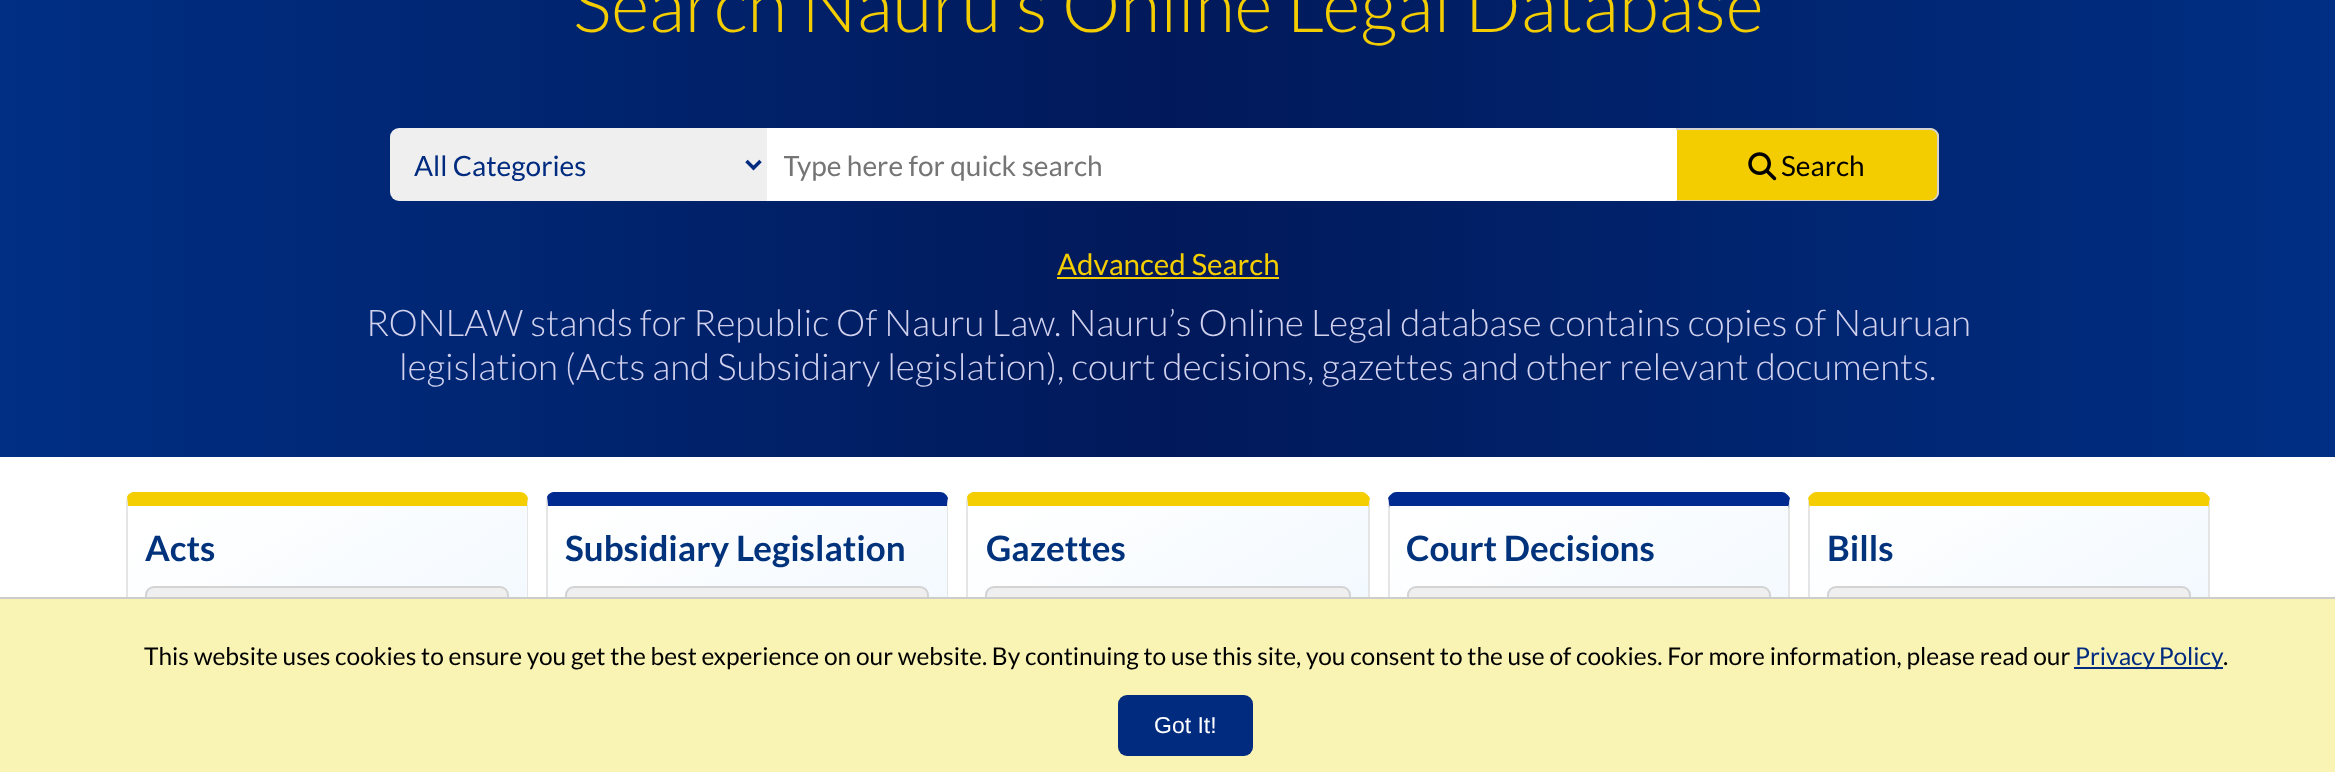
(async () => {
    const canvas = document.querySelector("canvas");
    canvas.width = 2335;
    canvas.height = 772;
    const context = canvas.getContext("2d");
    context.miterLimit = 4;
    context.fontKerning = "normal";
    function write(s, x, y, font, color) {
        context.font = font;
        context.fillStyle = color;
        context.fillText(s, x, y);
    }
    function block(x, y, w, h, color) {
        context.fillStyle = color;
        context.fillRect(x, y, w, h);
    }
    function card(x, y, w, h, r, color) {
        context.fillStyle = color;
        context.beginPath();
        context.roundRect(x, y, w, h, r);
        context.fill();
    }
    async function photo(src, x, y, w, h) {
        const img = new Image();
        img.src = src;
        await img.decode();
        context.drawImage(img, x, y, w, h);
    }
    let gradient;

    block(0, 0, 2335, 772, "rgb(255, 255, 255)");
    gradient = context.createLinearGradient(0, 166, 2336, 166);
    gradient.addColorStop(0, "rgb(0, 47, 132)");
    gradient.addColorStop(0.5, "rgb(1, 25, 90)");
    gradient.addColorStop(1, "rgb(0, 47, 132)");
    context.fillStyle = gradient;
    context.fillRect(0, 0, 2335, 457);
    write("Search Nauru’s Online Legal Database", 573, 32, "300 73.5px Lato", "rgb(244, 205, 1)");
    context.fillStyle = "rgb(239, 239, 239)";
    context.beginPath();
    context.roundRect(390, 128, 378, 73, [9, 0, 0, 9]);
    context.fill();
    context.beginPath();
    context.moveTo(746.5, 161);
    context.lineTo(753.5, 168);
    context.lineTo(760.5, 161);
    context.strokeStyle = "rgb(0, 43, 127)";
    context.lineWidth = 3.5;
    context.stroke();
    write("All Categories", 414, 176, "28px Lato", "rgb(0, 43, 127)");
    block(767, 128, 910, 73, "rgb(255, 255, 255)");
    context.save();
    context.beginPath();
    context.rect(784, 149, 875, 33);
    context.clip();
    write("Type here for quick search", 783, 176, "28px Lato", "rgb(117, 117, 117)");
    context.restore();
    context.fillStyle = "rgb(244, 205, 1)";
    context.beginPath();
    context.roundRect(1677, 128, 262, 73, [0, 9, 9, 0]);
    context.fill();
    context.fillStyle = "rgb(211, 211, 211)";
    context.beginPath();
    context.moveTo(1676, 128);
    context.lineTo(1930, 128);
    context.bezierCurveTo(1935, 128, 1939, 132, 1939, 136);
    context.lineTo(1939, 192);
    context.bezierCurveTo(1939, 197, 1935, 201, 1930, 201);
    context.lineTo(1676, 201);
    context.closePath();
    context.moveTo(1676, 130);
    context.lineTo(1930, 130);
    context.bezierCurveTo(1934, 130, 1937, 133, 1937, 136);
    context.lineTo(1937, 192);
    context.bezierCurveTo(1937, 196, 1934, 200, 1930, 200);
    context.lineTo(1676, 200);
    context.closePath();
    context.fill("evenodd");
    await photo("media/1.png", 1748, 152, 29, 29);
    write("Search", 1781, 176, "28px Lato", "rgb(0, 0, 0)");
    write("Advanced Search", 1057, 275, "29.5px Lato", "rgb(244, 205, 1)");
    block(1057, 277, 222, 2, "rgb(243, 205, 0)");
    write("RONLAW stands for Republic Of Nauru Law. Nauru’s Online Legal database contains copies of Nauruan", 366, 336, "300 36.75px Lato", "rgb(209, 209, 238)");
    write("legislation (Acts and Subsidiary legislation), court decisions, gazettes and other relevant documents.", 399, 380, "300 36.75px Lato", "rgb(209, 209, 238)");
    gradient = context.createLinearGradient(193, 468, 462, 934);
    gradient.addColorStop(0.05, "rgb(255, 255, 255)");
    gradient.addColorStop(1, "rgb(232, 244, 255)");
    context.fillStyle = gradient;
    context.beginPath();
    context.moveTo(135, 506);
    context.lineTo(527, 506);
    context.lineTo(527, 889);
    context.bezierCurveTo(527, 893, 524, 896, 520, 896);
    context.lineTo(135, 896);
    context.bezierCurveTo(131, 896, 128, 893, 128, 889);
    context.lineTo(128, 506);
    context.closePath();
    context.fill();
    context.fillStyle = "rgb(244, 206, 0)";
    context.beginPath();
    context.moveTo(135, 492);
    context.bezierCurveTo(131, 492, 128, 494, 127, 497);
    context.lineTo(128, 508);
    context.lineTo(128, 506);
    context.lineTo(527, 506);
    context.lineTo(528, 498);
    context.bezierCurveTo(527, 495, 524, 492, 520, 492);
    context.closePath();
    context.fill();
    context.fillStyle = "rgb(229, 229, 229)";
    context.beginPath();
    context.moveTo(528, 498);
    context.lineTo(528, 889);
    context.bezierCurveTo(528, 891, 527, 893, 526, 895);
    context.lineTo(525, 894);
    context.bezierCurveTo(526, 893, 527, 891, 527, 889);
    context.lineTo(527, 506);
    context.closePath();
    context.fill();
    context.beginPath();
    context.moveTo(126, 500);
    context.lineTo(126, 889);
    context.bezierCurveTo(126, 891, 127, 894, 129, 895);
    context.lineTo(130, 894);
    context.bezierCurveTo(129, 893, 128, 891, 128, 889);
    context.lineTo(128, 508);
    context.lineTo(127, 497);
    context.closePath();
    context.fill();
    write("Acts", 145, 561, "bold 35px Lato", "rgb(1, 50, 124)");
    context.fillStyle = "rgb(239, 239, 239)";
    context.beginPath();
    context.roundRect(146, 587, 362, 54, 8);
    context.fill();
    context.strokeStyle = "rgb(211, 211, 211)";
    context.lineWidth = 2;
    context.stroke();
    gradient = context.createLinearGradient(619, 465, 876, 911);
    gradient.addColorStop(0.05, "rgb(255, 255, 255)");
    gradient.addColorStop(1, "rgb(232, 244, 255)");
    context.fillStyle = gradient;
    context.beginPath();
    context.moveTo(555, 506);
    context.lineTo(947, 506);
    context.lineTo(947, 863);
    context.bezierCurveTo(947, 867, 944, 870, 940, 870);
    context.lineTo(555, 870);
    context.bezierCurveTo(551, 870, 548, 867, 548, 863);
    context.lineTo(548, 506);
    context.closePath();
    context.fill();
    context.fillStyle = "rgb(0, 42, 144)";
    context.beginPath();
    context.moveTo(555, 492);
    context.bezierCurveTo(551, 492, 548, 494, 547, 497);
    context.lineTo(548, 508);
    context.lineTo(548, 506);
    context.lineTo(947, 506);
    context.lineTo(948, 498);
    context.bezierCurveTo(947, 495, 944, 492, 940, 492);
    context.closePath();
    context.fill();
    context.fillStyle = "rgb(229, 229, 229)";
    context.beginPath();
    context.moveTo(948, 498);
    context.lineTo(948, 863);
    context.bezierCurveTo(948, 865, 947, 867, 946, 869);
    context.lineTo(945, 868);
    context.bezierCurveTo(946, 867, 947, 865, 947, 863);
    context.lineTo(947, 506);
    context.closePath();
    context.fill();
    context.beginPath();
    context.moveTo(546, 500);
    context.lineTo(546, 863);
    context.bezierCurveTo(546, 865, 547, 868, 548, 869);
    context.lineTo(550, 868);
    context.bezierCurveTo(549, 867, 548, 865, 548, 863);
    context.lineTo(548, 508);
    context.lineTo(547, 497);
    context.closePath();
    context.fill();
    write("Subsidiary Legislation", 565, 561, "bold 35px Lato", "rgb(1, 50, 124)");
    context.fillStyle = "rgb(239, 239, 239)";
    context.beginPath();
    context.roundRect(566, 587, 362, 54, 8);
    context.fill();
    context.stroke();
    gradient = context.createLinearGradient(1048, 460, 1289, 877);
    gradient.addColorStop(0.05, "rgb(255, 255, 255)");
    gradient.addColorStop(1, "rgb(232, 244, 255)");
    context.fillStyle = gradient;
    context.beginPath();
    context.moveTo(975, 506);
    context.lineTo(1368, 506);
    context.lineTo(1368, 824);
    context.bezierCurveTo(1368, 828, 1365, 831, 1362, 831);
    context.lineTo(975, 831);
    context.bezierCurveTo(971, 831, 968, 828, 968, 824);
    context.lineTo(968, 506);
    context.closePath();
    context.fill();
    context.fillStyle = "rgb(244, 206, 0)";
    context.beginPath();
    context.moveTo(975, 492);
    context.bezierCurveTo(971, 492, 968, 494, 967, 497);
    context.lineTo(968, 508);
    context.lineTo(968, 506);
    context.lineTo(1368, 506);
    context.lineTo(1368, 510);
    context.lineTo(1370, 498);
    context.bezierCurveTo(1368, 495, 1365, 492, 1362, 492);
    context.closePath();
    context.fill();
    context.fillStyle = "rgb(229, 229, 229)";
    context.beginPath();
    context.moveTo(1370, 498);
    context.lineTo(1370, 500);
    context.lineTo(1370, 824);
    context.bezierCurveTo(1370, 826, 1369, 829, 1368, 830);
    context.lineTo(1366, 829);
    context.bezierCurveTo(1367, 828, 1368, 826, 1368, 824);
    context.lineTo(1368, 510);
    context.closePath();
    context.fill();
    context.beginPath();
    context.moveTo(966, 500);
    context.lineTo(966, 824);
    context.bezierCurveTo(966, 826, 967, 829, 969, 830);
    context.lineTo(970, 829);
    context.bezierCurveTo(969, 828, 968, 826, 968, 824);
    context.lineTo(968, 508);
    context.lineTo(967, 497);
    context.closePath();
    context.fill();
    write("Gazettes", 986, 561, "bold 35px Lato", "rgb(1, 50, 124)");
    context.fillStyle = "rgb(239, 239, 239)";
    context.beginPath();
    context.roundRect(986, 587, 364, 54, 8);
    context.fill();
    context.stroke();
    gradient = context.createLinearGradient(1455, 468, 1723, 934);
    gradient.addColorStop(0.05, "rgb(255, 255, 255)");
    gradient.addColorStop(1, "rgb(232, 244, 255)");
    context.fillStyle = gradient;
    context.beginPath();
    context.moveTo(1396, 506);
    context.lineTo(1788, 506);
    context.lineTo(1788, 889);
    context.bezierCurveTo(1788, 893, 1785, 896, 1782, 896);
    context.lineTo(1396, 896);
    context.bezierCurveTo(1393, 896, 1390, 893, 1390, 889);
    context.lineTo(1390, 506);
    context.closePath();
    context.fill();
    context.fillStyle = "rgb(0, 42, 144)";
    context.beginPath();
    context.moveTo(1396, 492);
    context.bezierCurveTo(1393, 492, 1390, 495, 1388, 498);
    context.lineTo(1390, 510);
    context.lineTo(1390, 506);
    context.lineTo(1788, 506);
    context.lineTo(1788, 510);
    context.lineTo(1790, 498);
    context.bezierCurveTo(1788, 495, 1785, 492, 1782, 492);
    context.closePath();
    context.fill();
    context.fillStyle = "rgb(229, 229, 229)";
    context.beginPath();
    context.moveTo(1790, 498);
    context.lineTo(1790, 500);
    context.lineTo(1790, 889);
    context.bezierCurveTo(1790, 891, 1789, 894, 1788, 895);
    context.lineTo(1786, 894);
    context.bezierCurveTo(1787, 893, 1788, 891, 1788, 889);
    context.lineTo(1788, 510);
    context.closePath();
    context.fill();
    context.beginPath();
    context.moveTo(1388, 498);
    context.lineTo(1388, 500);
    context.lineTo(1388, 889);
    context.bezierCurveTo(1388, 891, 1389, 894, 1390, 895);
    context.lineTo(1392, 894);
    context.bezierCurveTo(1391, 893, 1390, 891, 1390, 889);
    context.lineTo(1390, 510);
    context.closePath();
    context.fill();
    write("Court Decisions", 1406, 561, "bold 35px Lato", "rgb(1, 50, 124)");
    context.fillStyle = "rgb(239, 239, 239)";
    context.beginPath();
    context.roundRect(1408, 587, 362, 54, 8);
    context.fill();
    context.stroke();
    gradient = context.createLinearGradient(1889, 460, 2129, 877);
    gradient.addColorStop(0.05, "rgb(255, 255, 255)");
    gradient.addColorStop(1, "rgb(232, 244, 255)");
    context.fillStyle = gradient;
    context.beginPath();
    context.moveTo(1816, 506);
    context.lineTo(2208, 506);
    context.lineTo(2208, 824);
    context.bezierCurveTo(2208, 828, 2205, 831, 2202, 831);
    context.lineTo(1816, 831);
    context.bezierCurveTo(1813, 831, 1810, 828, 1810, 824);
    context.lineTo(1810, 506);
    context.closePath();
    context.fill();
    context.fillStyle = "rgb(244, 206, 0)";
    context.beginPath();
    context.moveTo(1816, 492);
    context.bezierCurveTo(1813, 492, 1810, 495, 1808, 498);
    context.lineTo(1810, 510);
    context.lineTo(1810, 506);
    context.lineTo(2208, 506);
    context.lineTo(2208, 510);
    context.lineTo(2210, 498);
    context.bezierCurveTo(2208, 495, 2205, 492, 2202, 492);
    context.closePath();
    context.fill();
    context.fillStyle = "rgb(229, 229, 229)";
    context.beginPath();
    context.moveTo(2210, 498);
    context.lineTo(2210, 500);
    context.lineTo(2210, 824);
    context.bezierCurveTo(2210, 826, 2209, 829, 2208, 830);
    context.lineTo(2206, 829);
    context.bezierCurveTo(2207, 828, 2208, 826, 2208, 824);
    context.lineTo(2208, 510);
    context.closePath();
    context.fill();
    context.beginPath();
    context.moveTo(1808, 498);
    context.lineTo(1808, 500);
    context.lineTo(1808, 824);
    context.bezierCurveTo(1808, 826, 1809, 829, 1810, 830);
    context.lineTo(1812, 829);
    context.bezierCurveTo(1811, 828, 1810, 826, 1810, 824);
    context.lineTo(1810, 510);
    context.closePath();
    context.fill();
    write("Bills", 1827, 561, "bold 35px Lato", "rgb(1, 50, 124)");
    context.fillStyle = "rgb(239, 239, 239)";
    context.beginPath();
    context.roundRect(1828, 587, 362, 54, 8);
    context.fill();
    context.stroke();
    block(0, 599, 2335, 173, "rgb(250, 244, 180)");
    block(0, 597, 2335, 2, "rgb(204, 204, 204)");
    write("This website uses cookies to ensure you get the best experience on our website. By continuing to use this site, you consent to the use of cookies. For more information, please read our", 144, 665, "24.5px Lato", "rgb(0, 0, 0)");
    block(2074, 667, 149, 2, "rgb(0, 43, 127)");
    context.wordSpacing = "-1px";
    write("Privacy Policy", 2075, 665, "24.5px Lato", "rgb(0, 43, 127)");
    context.wordSpacing = "0px";
    write(".", 2223, 665, "24.5px Lato", "rgb(0, 0, 0)");
    card(1118, 695, 135, 61, 9, "rgb(0, 43, 127)");
    write("Got It!", 1154, 733, "23px Liberation Sans", "rgb(255, 255, 255)");
})();
